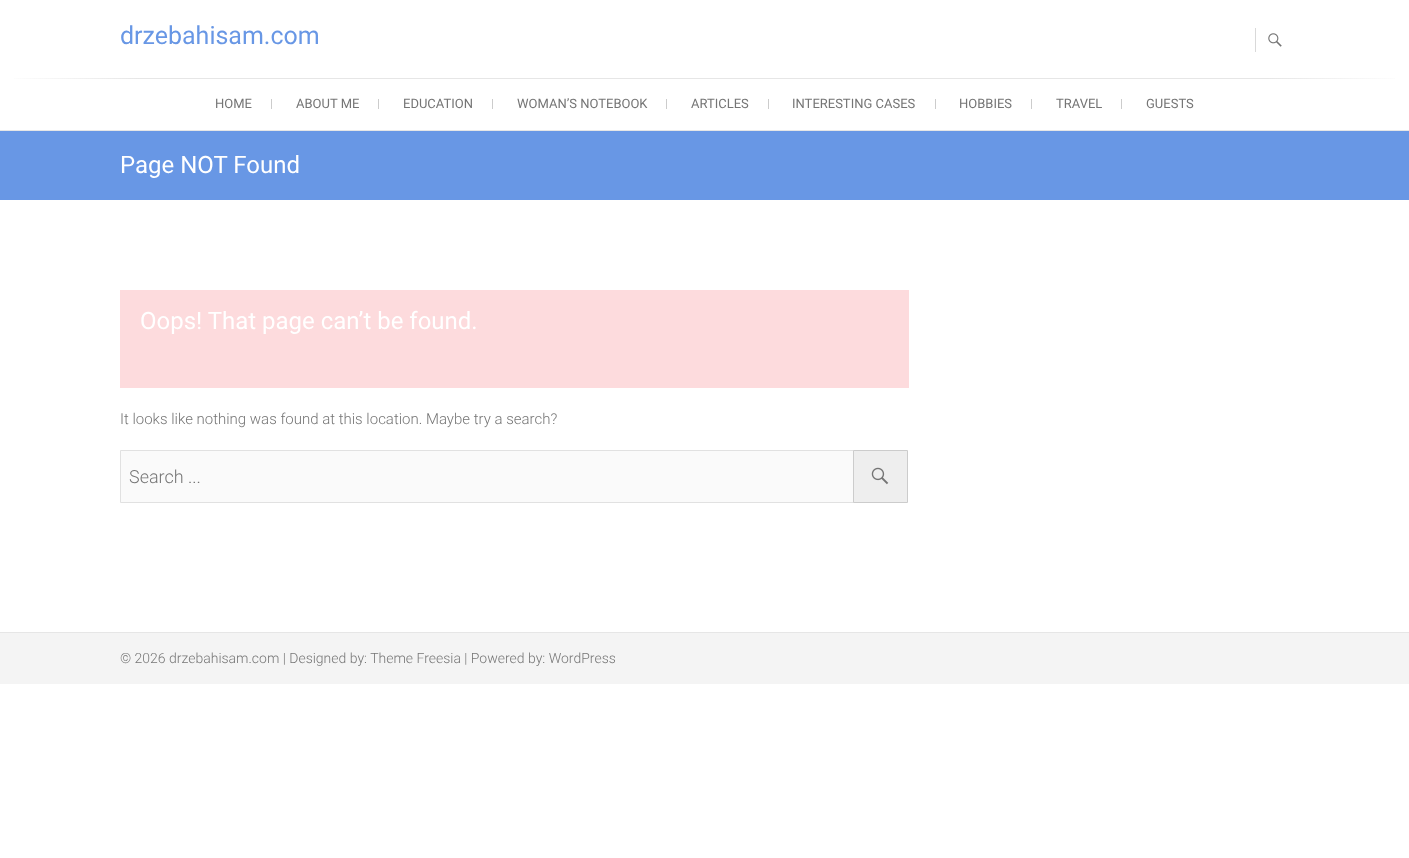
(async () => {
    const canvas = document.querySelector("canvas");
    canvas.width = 1409;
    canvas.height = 858;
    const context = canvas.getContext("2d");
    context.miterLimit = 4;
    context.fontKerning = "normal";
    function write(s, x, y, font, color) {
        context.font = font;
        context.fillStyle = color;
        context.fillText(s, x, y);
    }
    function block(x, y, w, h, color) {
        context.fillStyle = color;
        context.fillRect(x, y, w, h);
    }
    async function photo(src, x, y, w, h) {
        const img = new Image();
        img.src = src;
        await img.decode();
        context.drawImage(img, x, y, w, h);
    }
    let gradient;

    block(0, 0, 1409, 858, "rgb(255, 255, 255)");
    write("drzebahisam.com", 120, 44, "25px Roboto", "rgb(104, 151, 229)");
    block(1255, 28, 1, 24, "rgb(217, 217, 217)");
    await photo("media/1.png", 1268, 33, 14, 14);
    block(0, 130, 1409, 1, "rgb(230, 230, 230)");
    gradient = context.createLinearGradient(0, 79, 1409, 78);
    gradient.addColorStop(0, "rgb(255, 255, 255)");
    gradient.addColorStop(0.1, "rgb(230, 230, 230)");
    gradient.addColorStop(0.9, "rgb(230, 230, 230)");
    gradient.addColorStop(1, "rgb(255, 255, 255)");
    context.fillStyle = gradient;
    context.fillRect(14, 78, 1381, 1);
    write("HOME", 215, 108, "13px Roboto", "rgb(117, 117, 117)");
    block(271, 99, 1, 10, "rgb(204, 204, 204)");
    write("ABOUT ME", 296, 108, "13px Roboto", "rgb(117, 117, 117)");
    block(378, 99, 1, 10, "rgb(204, 204, 204)");
    write("EDUCATION", 403, 108, "13px Roboto", "rgb(117, 117, 117)");
    block(492, 99, 1, 10, "rgb(204, 204, 204)");
    write("WOMAN’S NOTEBOOK", 517, 108, "13px Roboto", "rgb(117, 117, 117)");
    block(666, 99, 1, 10, "rgb(204, 204, 204)");
    write("ARTICLES", 691, 108, "13px Roboto", "rgb(117, 117, 117)");
    block(768, 99, 1, 10, "rgb(204, 204, 204)");
    write("INTERESTING CASES", 792, 108, "13px Roboto", "rgb(117, 117, 117)");
    block(935, 99, 1, 10, "rgb(204, 204, 204)");
    write("HOBBIES", 959, 108, "13px Roboto", "rgb(117, 117, 117)");
    block(1031, 99, 1, 10, "rgb(204, 204, 204)");
    write("TRAVEL", 1056, 108, "13px Roboto", "rgb(117, 117, 117)");
    block(1121, 99, 1, 10, "rgb(204, 204, 204)");
    write("GUESTS", 1146, 108, "13px Roboto", "rgb(117, 117, 117)");
    block(0, 131, 1409, 69, "rgb(104, 151, 229)");
    write("Page NOT Found", 120, 173, "24px Roboto", "rgb(255, 255, 255)");
    block(120, 290, 789, 98, "rgb(253, 219, 221)");
    write("Oops! That page can’t be found.", 140, 329, "24px Roboto", "rgb(255, 255, 255)");
    write("It looks like nothing was found at this location. Maybe try a search?", 120, 424, "300 15px Roboto", "rgb(117, 117, 117)");
    context.fillStyle = "rgb(250, 250, 250)";
    context.beginPath();
    context.rect(120.5, 450.5, 733, 52);
    context.fill();
    context.strokeStyle = "rgb(225, 225, 225)";
    context.stroke();
    write("Search ...", 129, 483, "300 18px Roboto", "rgb(117, 117, 117)");
    context.fillStyle = "rgb(238, 238, 238)";
    context.beginPath();
    context.rect(853.5, 450.5, 54, 52);
    context.fill();
    context.strokeStyle = "rgb(204, 204, 204)";
    context.stroke();
    await photo("media/2.png", 871, 467, 18, 18);
    block(0, 632, 1409, 1, "rgb(230, 230, 230)");
    block(0, 633, 1409, 51, "rgb(244, 244, 244)");
    write("© 2026 drzebahisam.com | Designed by: Theme Freesia | Powered by: WordPress", 120, 663, "300 14px Roboto", "rgb(117, 117, 117)");
})();
